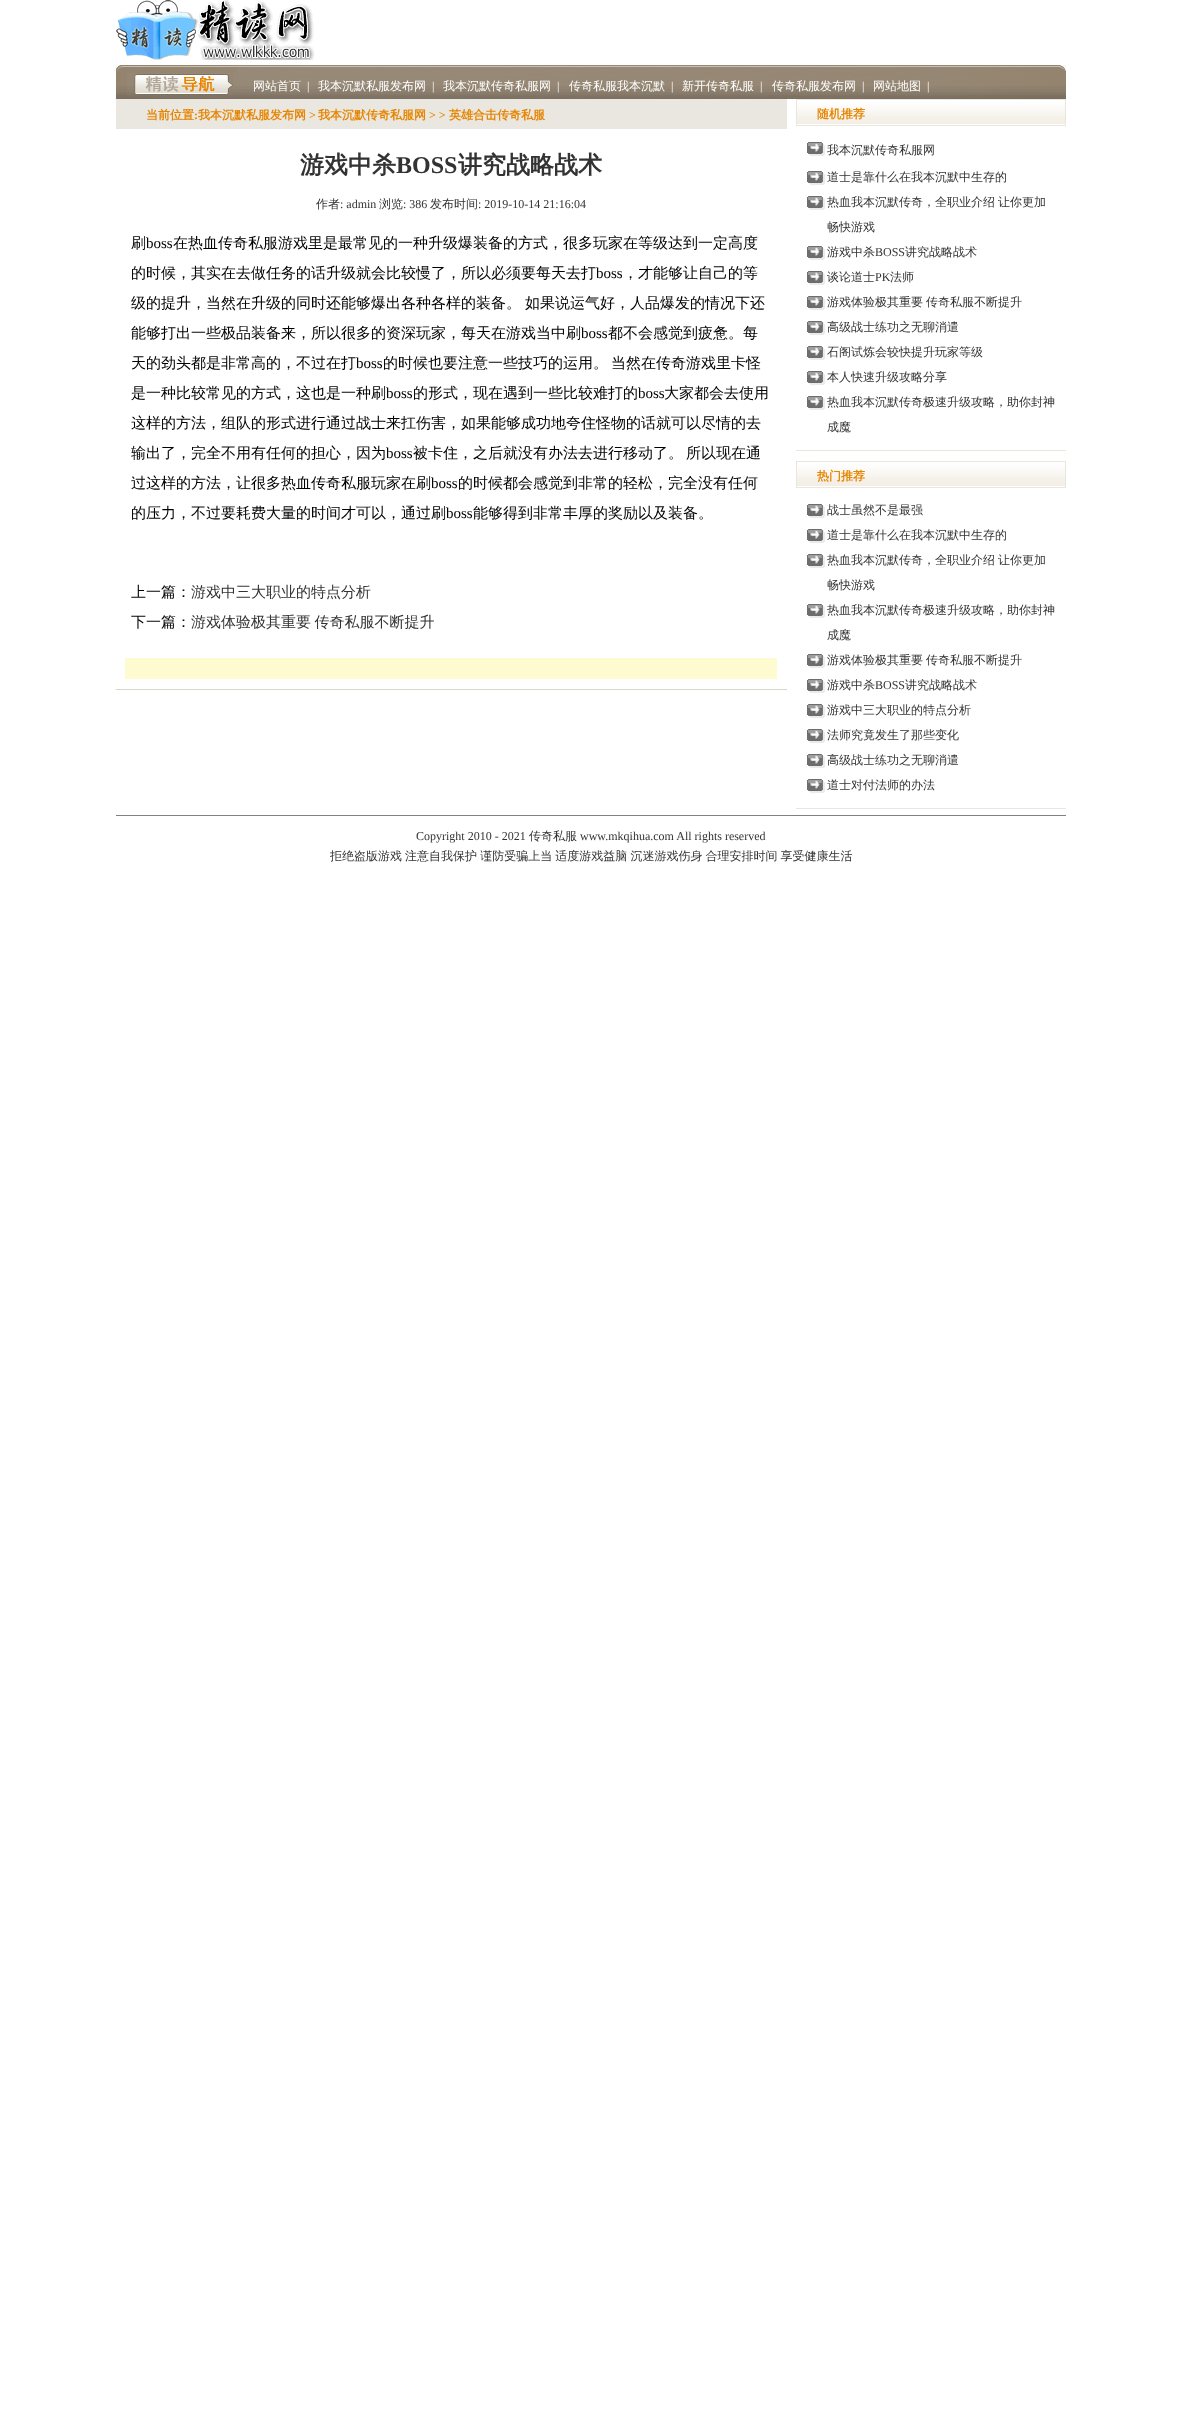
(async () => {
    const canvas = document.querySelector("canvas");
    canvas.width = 1181;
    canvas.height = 2421;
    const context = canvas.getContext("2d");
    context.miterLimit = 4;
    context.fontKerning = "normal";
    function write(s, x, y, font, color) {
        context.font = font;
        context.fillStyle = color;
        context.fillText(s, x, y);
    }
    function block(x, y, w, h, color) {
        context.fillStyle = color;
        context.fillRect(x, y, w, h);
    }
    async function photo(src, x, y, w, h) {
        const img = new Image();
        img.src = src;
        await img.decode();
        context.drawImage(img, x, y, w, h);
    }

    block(0, 0, 1181, 2421, "rgb(255, 255, 255)");
    await photo("media/1.png", 116, 0, 199, 60);
    await photo("media/2.png", 116, 65, 950, 34);
    await photo("media/3.png", 134, 74, 99, 21);
    write("网站首页", 253, 90, "500 12px WenQuanYi Zen Hei", "rgb(255, 255, 255)");
    write("|", 307, 90, "12px Liberation Serif", "rgb(255, 255, 255)");
    write("我本沉默私服发布网", 318, 90, "500 12px WenQuanYi Zen Hei", "rgb(255, 255, 255)");
    write("|", 432, 90, "12px Liberation Serif", "rgb(255, 255, 255)");
    write("我本沉默传奇私服网", 443, 90, "500 12px WenQuanYi Zen Hei", "rgb(255, 255, 255)");
    write("|", 557, 90, "12px Liberation Serif", "rgb(255, 255, 255)");
    write("传奇私服我本沉默", 569, 90, "500 12px WenQuanYi Zen Hei", "rgb(255, 255, 255)");
    write("|", 671, 90, "12px Liberation Serif", "rgb(255, 255, 255)");
    write("新开传奇私服", 682, 90, "500 12px WenQuanYi Zen Hei", "rgb(255, 255, 255)");
    write("|", 760, 90, "12px Liberation Serif", "rgb(255, 255, 255)");
    write("传奇私服发布网", 772, 90, "500 12px WenQuanYi Zen Hei", "rgb(255, 255, 255)");
    write("|", 862, 90, "12px Liberation Serif", "rgb(255, 255, 255)");
    write("网站地图", 873, 90, "500 12px WenQuanYi Zen Hei", "rgb(255, 255, 255)");
    write("|", 927, 90, "12px Liberation Serif", "rgb(255, 255, 255)");
    block(116, 99, 671, 30, "rgb(234, 231, 224)");
    write("当前位置", 146, 119, "bold 12px WenQuanYi Zen Hei", "rgb(230, 133, 0)");
    write(":", 194, 119, "bold 12px Liberation Serif", "rgb(230, 133, 0)");
    write("我本沉默私服发布网", 198, 119, "bold 12px WenQuanYi Zen Hei", "rgb(230, 133, 0)");
    write(">", 309, 119, "bold 12px Liberation Serif", "rgb(230, 133, 0)");
    write("我本沉默传奇私服网", 318, 119, "bold 12px WenQuanYi Zen Hei", "rgb(230, 133, 0)");
    write("> >", 429, 119, "bold 12px Liberation Serif", "rgb(230, 133, 0)");
    write("英雄合击传奇私服", 449, 119, "bold 12px WenQuanYi Zen Hei", "rgb(230, 133, 0)");
    write("游戏中杀", 300, 173, "bold 24px WenQuanYi Zen Hei", "rgb(51, 51, 51)");
    write("BOSS", 396, 173, "bold 24px Liberation Serif", "rgb(51, 51, 51)");
    write("讲究战略战术", 458, 173, "bold 24px WenQuanYi Zen Hei", "rgb(51, 51, 51)");
    write("作者", 316, 208, "500 12px WenQuanYi Zen Hei", "rgb(51, 51, 51)");
    write(": admin", 340, 208, "12px Liberation Serif", "rgb(51, 51, 51)");
    write("浏览", 379, 208, "500 12px WenQuanYi Zen Hei", "rgb(51, 51, 51)");
    write(": 386", 403, 208, "12px Liberation Serif", "rgb(51, 51, 51)");
    write("发布时间", 430, 208, "500 12px WenQuanYi Zen Hei", "rgb(51, 51, 51)");
    write(": 2019-10-14 21:16:04", 478, 208, "12px Liberation Serif", "rgb(51, 51, 51)");
    write("刷", 131, 248, "500 15px WenQuanYi Zen Hei", "rgb(0, 0, 0)");
    write("boss", 146, 248, "15px Liberation Serif", "rgb(0, 0, 0)");
    write("在热血传奇私服游戏里是最常见的一种升级爆装备的方式，很多玩家在等级达到一定高度", 173, 248, "500 15px WenQuanYi Zen Hei", "rgb(0, 0, 0)");
    write("的时候，其实在去做任务的话升级就会比较慢了，所以必须要每天去打", 131, 278, "500 15px WenQuanYi Zen Hei", "rgb(0, 0, 0)");
    write("boss", 596, 278, "15px Liberation Serif", "rgb(0, 0, 0)");
    write("，才能够让自己的等", 623, 278, "500 15px WenQuanYi Zen Hei", "rgb(0, 0, 0)");
    write("级的提升，当然在升级的同时还能够爆出各种各样的装备。", 131, 308, "500 15px WenQuanYi Zen Hei", "rgb(0, 0, 0)");
    write("如果说运气好，人品爆发的情况下还", 525, 308, "500 15px WenQuanYi Zen Hei", "rgb(0, 0, 0)");
    write("能够打出一些极品装备来，所以很多的资深玩家，每天在游戏当中刷", 131, 338, "500 15px WenQuanYi Zen Hei", "rgb(0, 0, 0)");
    write("boss", 581, 338, "15px Liberation Serif", "rgb(0, 0, 0)");
    write("都不会感觉到疲惫。每", 608, 338, "500 15px WenQuanYi Zen Hei", "rgb(0, 0, 0)");
    write("天的劲头都是非常高的，不过在打", 131, 368, "500 15px WenQuanYi Zen Hei", "rgb(0, 0, 0)");
    write("boss", 356, 368, "15px Liberation Serif", "rgb(0, 0, 0)");
    write("的时候也要注意一些技巧的运用。", 383, 368, "500 15px WenQuanYi Zen Hei", "rgb(0, 0, 0)");
    write("当然在传奇游戏里卡怪", 611, 368, "500 15px WenQuanYi Zen Hei", "rgb(0, 0, 0)");
    write("是一种比较常见的方式，这也是一种刷", 131, 398, "500 15px WenQuanYi Zen Hei", "rgb(0, 0, 0)");
    write("boss", 386, 398, "15px Liberation Serif", "rgb(0, 0, 0)");
    write("的形式，现在遇到一些比较难打的", 413, 398, "500 15px WenQuanYi Zen Hei", "rgb(0, 0, 0)");
    write("boss", 638, 398, "15px Liberation Serif", "rgb(0, 0, 0)");
    write("大家都会去使用", 664, 398, "500 15px WenQuanYi Zen Hei", "rgb(0, 0, 0)");
    write("这样的方法，组队的形式进行通过战士来扛伤害，如果能够成功地夸住怪物的话就可以尽情的去", 131, 428, "500 15px WenQuanYi Zen Hei", "rgb(0, 0, 0)");
    write("输出了，完全不用有任何的担心，因为", 131, 458, "500 15px WenQuanYi Zen Hei", "rgb(0, 0, 0)");
    write("boss", 386, 458, "15px Liberation Serif", "rgb(0, 0, 0)");
    write("被卡住，之后就没有办法去进行移动了。", 413, 458, "500 15px WenQuanYi Zen Hei", "rgb(0, 0, 0)");
    write("所以现在通", 686, 458, "500 15px WenQuanYi Zen Hei", "rgb(0, 0, 0)");
    write("过这样的方法，让很多热血传奇私服玩家在刷", 131, 488, "500 15px WenQuanYi Zen Hei", "rgb(0, 0, 0)");
    write("boss", 431, 488, "15px Liberation Serif", "rgb(0, 0, 0)");
    write("的时候都会感觉到非常的轻松，完全没有任何", 458, 488, "500 15px WenQuanYi Zen Hei", "rgb(0, 0, 0)");
    write("的压力，不过要耗费大量的时间才可以，通过刷", 131, 518, "500 15px WenQuanYi Zen Hei", "rgb(0, 0, 0)");
    write("boss", 446, 518, "15px Liberation Serif", "rgb(0, 0, 0)");
    write("能够得到非常丰厚的奖励以及装备。", 473, 518, "500 15px WenQuanYi Zen Hei", "rgb(0, 0, 0)");
    write("上一篇：", 131, 597, "500 15px WenQuanYi Zen Hei", "rgb(0, 0, 0)");
    write("游戏中三大职业的特点分析", 191, 597, "500 15px WenQuanYi Zen Hei", "rgb(51, 51, 51)");
    write("下一篇：", 131, 627, "500 15px WenQuanYi Zen Hei", "rgb(0, 0, 0)");
    context.wordSpacing = "-1px";
    write("游戏体验极其重要 传奇私服不断提升", 191, 627, "500 15px WenQuanYi Zen Hei", "rgb(51, 51, 51)");
    block(125, 658, 652, 21, "rgb(255, 251, 209)");
    block(116, 689, 671, 1, "rgb(217, 213, 202)");
    await photo("media/4.png", 796, 99, 270, 27);
    context.wordSpacing = "0px";
    write("随机推荐", 817, 118, "bold 12px WenQuanYi Zen Hei", "rgb(230, 133, 0)");
    await photo("media/5.png", 807, 142, 18, 14);
    write("我本沉默传奇私服网", 827, 154, "500 12px WenQuanYi Zen Hei", "rgb(51, 51, 51)");
    await photo("media/5.png", 807, 171, 18, 14);
    write("道士是靠什么在我本沉默中生存的", 827, 181, "500 12px WenQuanYi Zen Hei", "rgb(51, 51, 51)");
    await photo("media/5.png", 807, 196, 18, 14);
    context.wordSpacing = "-0.5px";
    write("热血我本沉默传奇，全职业介绍 让你更加", 827, 206, "500 12px WenQuanYi Zen Hei", "rgb(51, 51, 51)");
    context.wordSpacing = "0px";
    write("畅快游戏", 827, 231, "500 12px WenQuanYi Zen Hei", "rgb(51, 51, 51)");
    await photo("media/5.png", 807, 246, 18, 14);
    write("游戏中杀", 827, 256, "500 12px WenQuanYi Zen Hei", "rgb(51, 51, 51)");
    write("BOSS", 875, 256, "12px Liberation Serif", "rgb(51, 51, 51)");
    write("讲究战略战术", 905, 256, "500 12px WenQuanYi Zen Hei", "rgb(51, 51, 51)");
    await photo("media/5.png", 807, 271, 18, 14);
    write("谈论道士", 827, 281, "500 12px WenQuanYi Zen Hei", "rgb(51, 51, 51)");
    write("PK", 875, 281, "12px Liberation Serif", "rgb(51, 51, 51)");
    write("法师", 890, 281, "500 12px WenQuanYi Zen Hei", "rgb(51, 51, 51)");
    await photo("media/5.png", 807, 296, 18, 14);
    context.wordSpacing = "-0.5px";
    write("游戏体验极其重要 传奇私服不断提升", 827, 306, "500 12px WenQuanYi Zen Hei", "rgb(51, 51, 51)");
    await photo("media/5.png", 807, 321, 18, 14);
    context.wordSpacing = "0px";
    write("高级战士练功之无聊消遣", 827, 331, "500 12px WenQuanYi Zen Hei", "rgb(51, 51, 51)");
    await photo("media/5.png", 807, 346, 18, 14);
    write("石阁试炼会较快提升玩家等级", 827, 356, "500 12px WenQuanYi Zen Hei", "rgb(51, 51, 51)");
    await photo("media/5.png", 807, 371, 18, 14);
    write("本人快速升级攻略分享", 827, 381, "500 12px WenQuanYi Zen Hei", "rgb(51, 51, 51)");
    await photo("media/5.png", 807, 396, 18, 14);
    write("热血我本沉默传奇极速升级攻略，助你封神", 827, 406, "500 12px WenQuanYi Zen Hei", "rgb(51, 51, 51)");
    write("成魔", 827, 431, "500 12px WenQuanYi Zen Hei", "rgb(51, 51, 51)");
    block(796, 450, 270, 1, "rgb(233, 230, 223)");
    await photo("media/4.png", 796, 461, 270, 27);
    write("热门推荐", 817, 480, "bold 12px WenQuanYi Zen Hei", "rgb(230, 133, 0)");
    await photo("media/5.png", 807, 504, 18, 14);
    write("战士虽然不是最强", 827, 514, "500 12px WenQuanYi Zen Hei", "rgb(51, 51, 51)");
    await photo("media/5.png", 807, 529, 18, 14);
    write("道士是靠什么在我本沉默中生存的", 827, 539, "500 12px WenQuanYi Zen Hei", "rgb(51, 51, 51)");
    await photo("media/5.png", 807, 554, 18, 14);
    context.wordSpacing = "-0.5px";
    write("热血我本沉默传奇，全职业介绍 让你更加", 827, 564, "500 12px WenQuanYi Zen Hei", "rgb(51, 51, 51)");
    context.wordSpacing = "0px";
    write("畅快游戏", 827, 589, "500 12px WenQuanYi Zen Hei", "rgb(51, 51, 51)");
    await photo("media/5.png", 807, 604, 18, 14);
    write("热血我本沉默传奇极速升级攻略，助你封神", 827, 614, "500 12px WenQuanYi Zen Hei", "rgb(51, 51, 51)");
    write("成魔", 827, 639, "500 12px WenQuanYi Zen Hei", "rgb(51, 51, 51)");
    await photo("media/5.png", 807, 654, 18, 14);
    context.wordSpacing = "-0.5px";
    write("游戏体验极其重要 传奇私服不断提升", 827, 664, "500 12px WenQuanYi Zen Hei", "rgb(51, 51, 51)");
    await photo("media/5.png", 807, 679, 18, 14);
    context.wordSpacing = "0px";
    write("游戏中杀", 827, 689, "500 12px WenQuanYi Zen Hei", "rgb(51, 51, 51)");
    write("BOSS", 875, 689, "12px Liberation Serif", "rgb(51, 51, 51)");
    write("讲究战略战术", 905, 689, "500 12px WenQuanYi Zen Hei", "rgb(51, 51, 51)");
    await photo("media/5.png", 807, 704, 18, 14);
    write("游戏中三大职业的特点分析", 827, 714, "500 12px WenQuanYi Zen Hei", "rgb(51, 51, 51)");
    await photo("media/5.png", 807, 729, 18, 14);
    write("法师究竟发生了那些变化", 827, 739, "500 12px WenQuanYi Zen Hei", "rgb(51, 51, 51)");
    await photo("media/5.png", 807, 754, 18, 14);
    write("高级战士练功之无聊消遣", 827, 764, "500 12px WenQuanYi Zen Hei", "rgb(51, 51, 51)");
    await photo("media/5.png", 807, 779, 18, 14);
    write("道士对付法师的办法", 827, 789, "500 12px WenQuanYi Zen Hei", "rgb(51, 51, 51)");
    block(796, 808, 270, 1, "rgb(233, 230, 223)");
    block(116, 815, 950, 1, "rgb(128, 128, 128)");
    write("Copyright 2010 - 2021", 416, 840, "12px Liberation Serif", "rgb(51, 51, 51)");
    write("传奇私服", 529, 840, "500 12px WenQuanYi Zen Hei", "rgb(51, 51, 51)");
    write("www.mkqihua.com All rights reserved", 580, 840, "12px Liberation Serif", "rgb(51, 51, 51)");
    context.wordSpacing = "-0.5px";
    write("拒绝盗版游戏 注意自我保护 谨防受骗上当 适度游戏益脑 沉迷游戏伤身 合理安排时间 享受健康生活", 330, 860, "500 12px WenQuanYi Zen Hei", "rgb(51, 51, 51)");
})();
